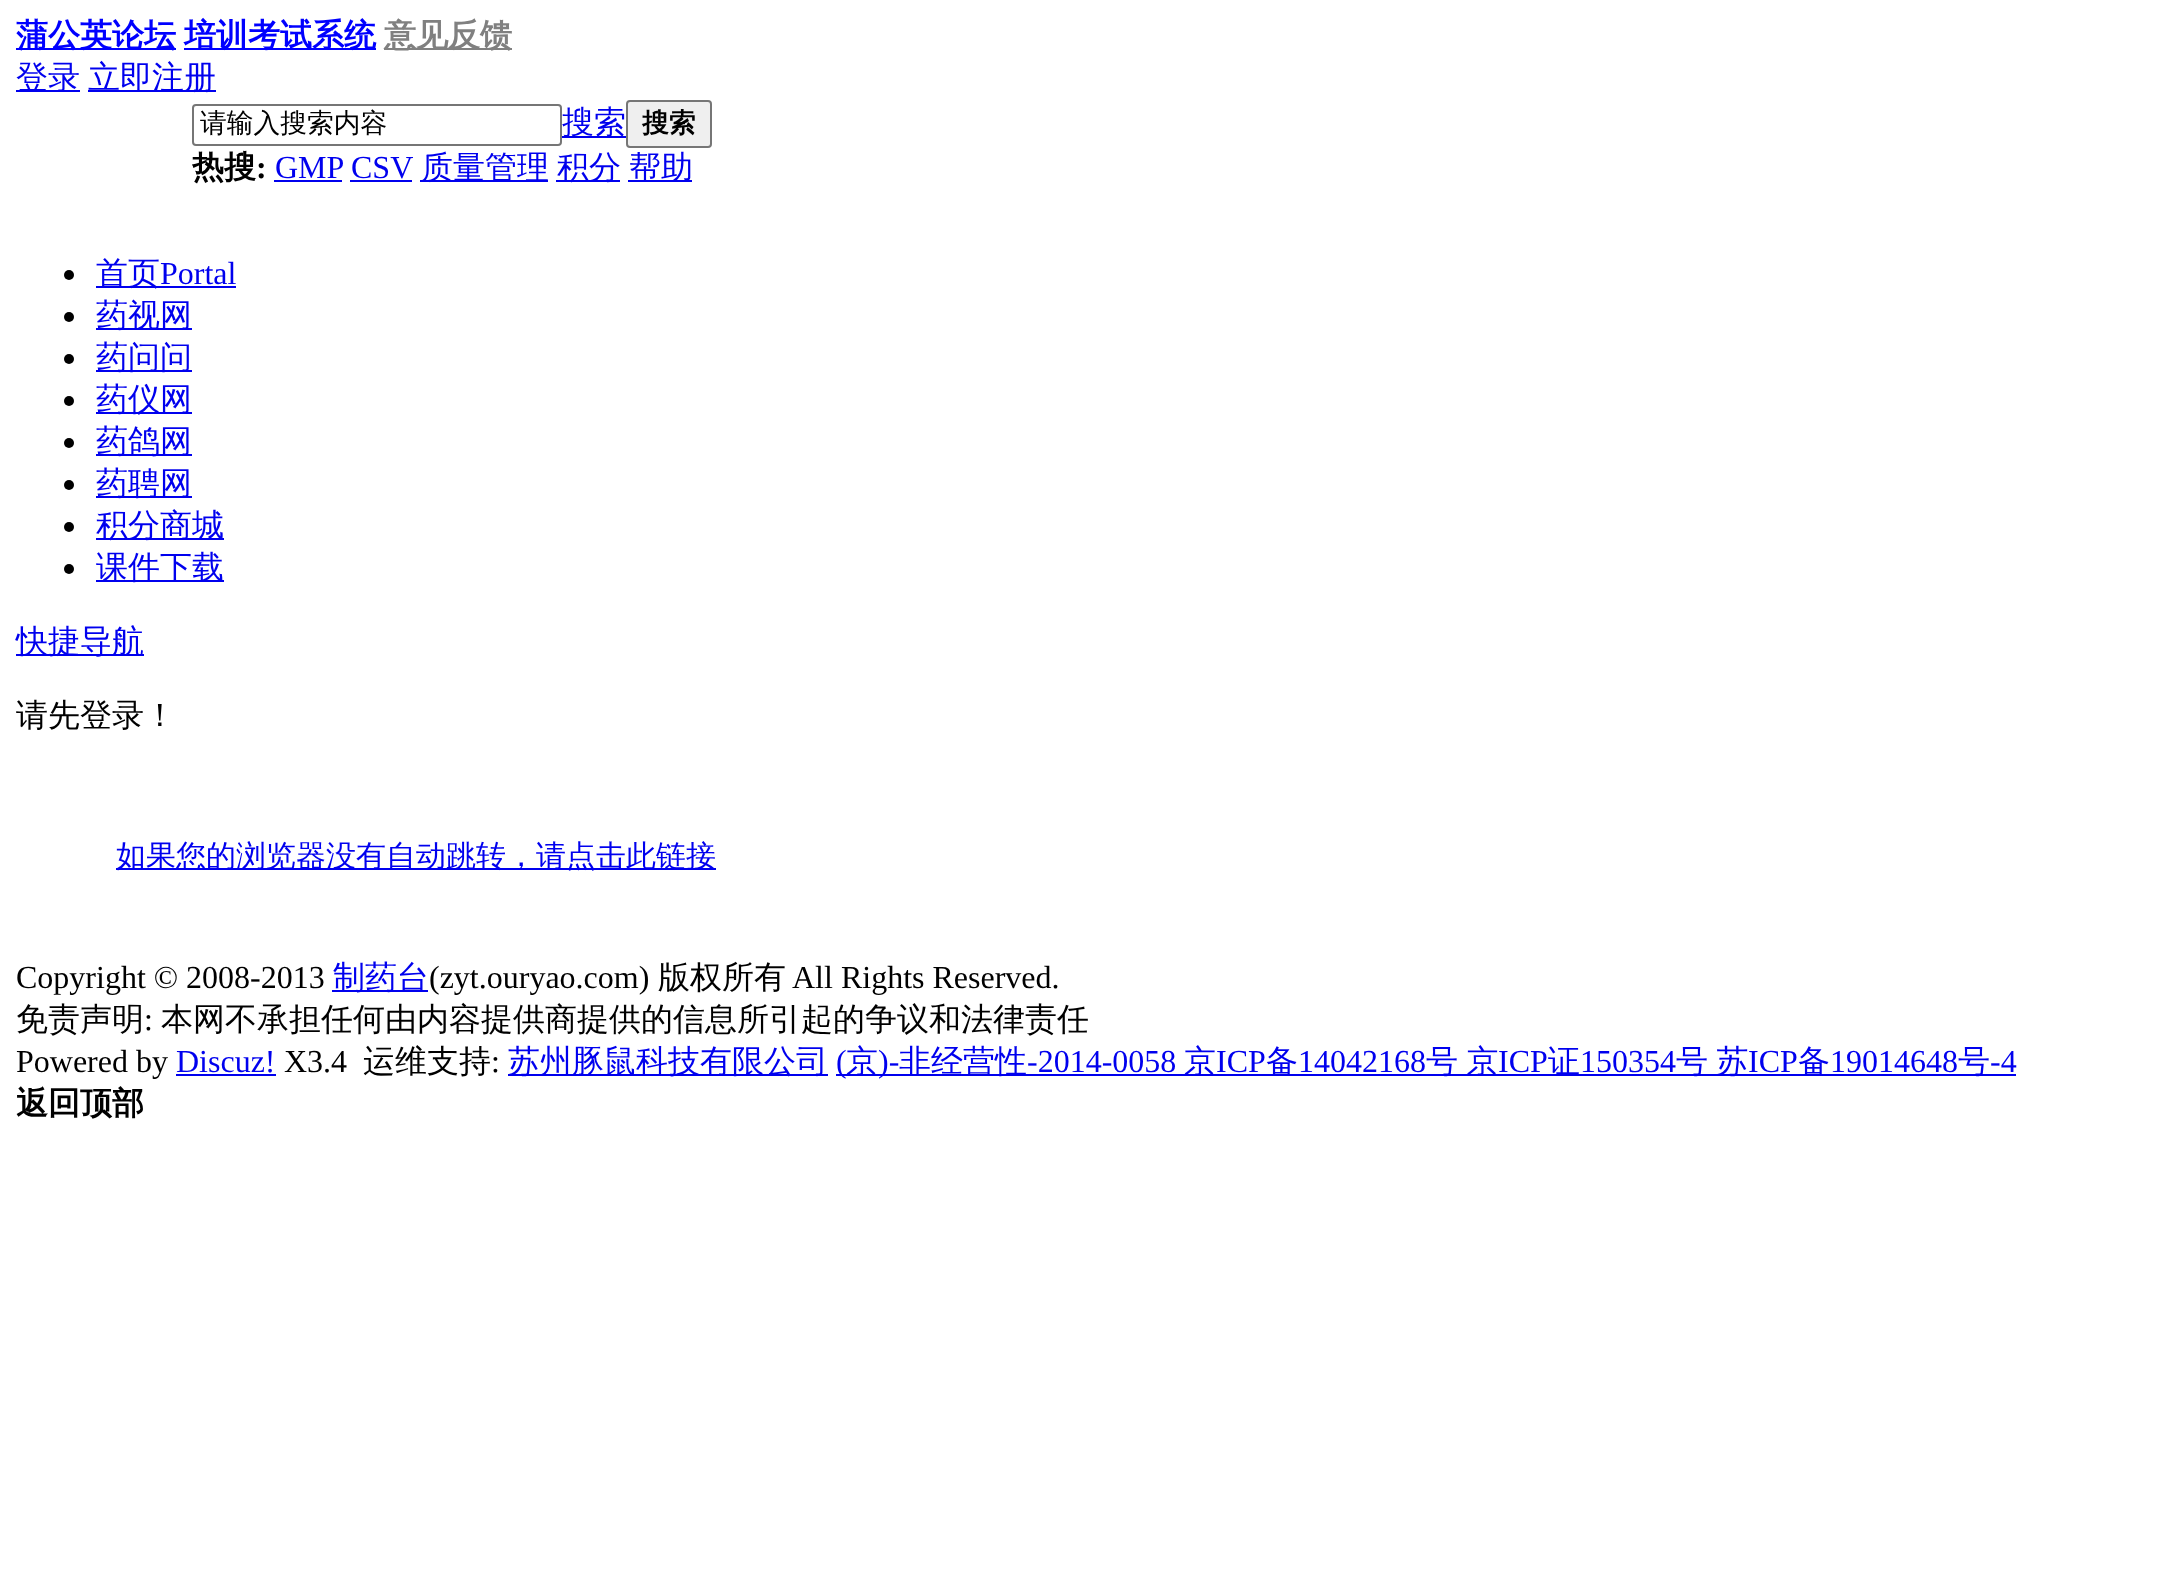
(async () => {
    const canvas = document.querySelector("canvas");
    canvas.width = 2157;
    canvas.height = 1572;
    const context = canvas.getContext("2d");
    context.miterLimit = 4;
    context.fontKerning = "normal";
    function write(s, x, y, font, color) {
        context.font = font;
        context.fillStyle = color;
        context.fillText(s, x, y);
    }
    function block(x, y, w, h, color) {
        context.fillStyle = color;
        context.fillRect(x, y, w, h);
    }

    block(0, 0, 2157, 1572, "rgb(255, 255, 255)");
    block(16, 48, 160, 2, "rgb(0, 0, 255)");
    write("蒲公英论坛", 16, 46, "bold 32px WenQuanYi Zen Hei", "rgb(0, 0, 255)");
    block(184, 48, 192, 2, "rgb(0, 0, 255)");
    write("培训考试系统", 184, 46, "bold 32px WenQuanYi Zen Hei", "rgb(0, 0, 255)");
    block(384, 48, 128, 2, "rgb(128, 128, 128)");
    write("意见反馈", 384, 46, "bold 32px WenQuanYi Zen Hei", "rgb(128, 128, 128)");
    block(16, 90, 64, 2, "rgb(0, 0, 238)");
    write("登录", 16, 88, "500 32px WenQuanYi Zen Hei", "rgb(0, 0, 238)");
    block(88, 90, 128, 2, "rgb(0, 0, 238)");
    write("立即注册", 88, 88, "500 32px WenQuanYi Zen Hei", "rgb(0, 0, 238)");
    context.beginPath();
    context.roundRect(193, 105, 368, 40, 3);
    context.strokeStyle = "rgb(118, 118, 118)";
    context.lineWidth = 2;
    context.stroke();
    write("请输入搜索内容", 200, 132, "500 26.75px WenQuanYi Zen Hei", "rgb(0, 0, 0)");
    block(562, 136, 64, 2, "rgb(0, 0, 238)");
    write("搜索", 562, 133, "500 32px WenQuanYi Zen Hei", "rgb(0, 0, 238)");
    context.fillStyle = "rgb(239, 239, 239)";
    context.beginPath();
    context.roundRect(627, 101, 84, 46, 3);
    context.fill();
    context.stroke();
    write("搜索", 642, 132, "bold 26.75px WenQuanYi Zen Hei", "rgb(0, 0, 0)");
    write("热搜", 192, 178, "bold 32px WenQuanYi Zen Hei", "rgb(0, 0, 0)");
    write(":", 256, 178, "bold 32px Liberation Serif", "rgb(0, 0, 0)");
    write("GMP", 275, 178, "32px Liberation Serif", "rgb(0, 0, 238)");
    block(274, 180, 68, 2, "rgb(0, 0, 238)");
    write("CSV", 351, 178, "32px Liberation Serif", "rgb(0, 0, 238)");
    block(350, 180, 62, 2, "rgb(0, 0, 238)");
    block(420, 180, 128, 2, "rgb(0, 0, 238)");
    write("质量管理", 421, 178, "500 32px WenQuanYi Zen Hei", "rgb(0, 0, 238)");
    block(556, 180, 64, 2, "rgb(0, 0, 238)");
    write("积分", 557, 178, "500 32px WenQuanYi Zen Hei", "rgb(0, 0, 238)");
    block(628, 180, 64, 2, "rgb(0, 0, 238)");
    write("帮助", 629, 178, "500 32px WenQuanYi Zen Hei", "rgb(0, 0, 238)");
    context.fillStyle = "rgb(0, 0, 0)";
    context.beginPath();
    context.arc(69, 275, 5, 0, Math.PI * 2);
    context.fill();
    block(96, 286, 140, 2, "rgb(0, 0, 238)");
    write("首页", 96, 284, "500 32px WenQuanYi Zen Hei", "rgb(0, 0, 238)");
    write("Portal", 160, 284, "32px Liberation Serif", "rgb(0, 0, 238)");
    context.fillStyle = "rgb(0, 0, 0)";
    context.beginPath();
    context.arc(69, 317, 5, 0, Math.PI * 2);
    context.fill();
    block(96, 328, 96, 2, "rgb(0, 0, 238)");
    write("药视网", 96, 326, "500 32px WenQuanYi Zen Hei", "rgb(0, 0, 238)");
    context.fillStyle = "rgb(0, 0, 0)";
    context.beginPath();
    context.arc(69, 359, 5, 0, Math.PI * 2);
    context.fill();
    block(96, 370, 96, 2, "rgb(0, 0, 238)");
    write("药问问", 96, 368, "500 32px WenQuanYi Zen Hei", "rgb(0, 0, 238)");
    context.fillStyle = "rgb(0, 0, 0)";
    context.beginPath();
    context.arc(69, 401, 5, 0, Math.PI * 2);
    context.fill();
    block(96, 412, 96, 2, "rgb(0, 0, 238)");
    write("药仪网", 96, 410, "500 32px WenQuanYi Zen Hei", "rgb(0, 0, 238)");
    context.fillStyle = "rgb(0, 0, 0)";
    context.beginPath();
    context.arc(69, 443, 5, 0, Math.PI * 2);
    context.fill();
    block(96, 454, 96, 2, "rgb(0, 0, 238)");
    write("药鸽网", 96, 452, "500 32px WenQuanYi Zen Hei", "rgb(0, 0, 238)");
    context.fillStyle = "rgb(0, 0, 0)";
    context.beginPath();
    context.arc(69, 485, 5, 0, Math.PI * 2);
    context.fill();
    block(96, 496, 96, 2, "rgb(0, 0, 238)");
    write("药聘网", 96, 494, "500 32px WenQuanYi Zen Hei", "rgb(0, 0, 238)");
    context.fillStyle = "rgb(0, 0, 0)";
    context.beginPath();
    context.arc(69, 527, 5, 0, Math.PI * 2);
    context.fill();
    block(96, 538, 128, 2, "rgb(0, 0, 238)");
    write("积分商城", 96, 536, "500 32px WenQuanYi Zen Hei", "rgb(0, 0, 238)");
    context.fillStyle = "rgb(0, 0, 0)";
    context.beginPath();
    context.arc(69, 569, 5, 0, Math.PI * 2);
    context.fill();
    block(96, 580, 128, 2, "rgb(0, 0, 238)");
    write("课件下载", 96, 578, "500 32px WenQuanYi Zen Hei", "rgb(0, 0, 238)");
    block(16, 654, 128, 2, "rgb(0, 0, 238)");
    write("快捷导航", 16, 652, "500 32px WenQuanYi Zen Hei", "rgb(0, 0, 238)");
    write("请先登录！", 16, 726, "500 32px WenQuanYi Zen Hei", "rgb(0, 0, 0)");
    block(116, 868, 600, 2, "rgb(0, 0, 238)");
    write("如果您的浏览器没有自动跳转，请点击此链接", 116, 866, "500 30px WenQuanYi Zen Hei", "rgb(0, 0, 238)");
    write("Copyright © 2008-2013", 16, 988, "32px Liberation Serif", "rgb(0, 0, 0)");
    block(332, 990, 96, 2, "rgb(0, 0, 238)");
    write("制药台", 333, 988, "500 32px WenQuanYi Zen Hei", "rgb(0, 0, 238)");
    write("(zyt.ouryao.com)", 429, 988, "32px Liberation Serif", "rgb(0, 0, 0)");
    write("版权所有", 658, 988, "500 32px WenQuanYi Zen Hei", "rgb(0, 0, 0)");
    write("All Rights Reserved.", 792, 988, "32px Liberation Serif", "rgb(0, 0, 0)");
    write("免责声明", 16, 1030, "500 32px WenQuanYi Zen Hei", "rgb(0, 0, 0)");
    write(":", 144, 1030, "32px Liberation Serif", "rgb(0, 0, 0)");
    write("本网不承担任何由内容提供商提供的信息所引起的争议和法律责任", 161, 1030, "500 32px WenQuanYi Zen Hei", "rgb(0, 0, 0)");
    write("Powered by", 16, 1072, "32px Liberation Serif", "rgb(0, 0, 0)");
    write("Discuz!", 176, 1072, "32px Liberation Serif", "rgb(0, 0, 238)");
    block(176, 1074, 100, 2, "rgb(0, 0, 238)");
    write("X3.4", 284, 1072, "32px Liberation Serif", "rgb(0, 0, 0)");
    write("运维支持", 363, 1072, "500 32px WenQuanYi Zen Hei", "rgb(0, 0, 0)");
    write(":", 491, 1072, "32px Liberation Serif", "rgb(0, 0, 0)");
    block(508, 1074, 320, 2, "rgb(0, 0, 238)");
    write("苏州豚鼠科技有限公司", 508, 1072, "500 32px WenQuanYi Zen Hei", "rgb(0, 0, 238)");
    block(836, 1074, 1180, 2, "rgb(0, 0, 238)");
    write("(", 836, 1072, "32px Liberation Serif", "rgb(0, 0, 238)");
    write("京", 846, 1072, "500 32px WenQuanYi Zen Hei", "rgb(0, 0, 238)");
    write(")-", 878, 1072, "32px Liberation Serif", "rgb(0, 0, 238)");
    write("非经营性", 899, 1072, "500 32px WenQuanYi Zen Hei", "rgb(0, 0, 238)");
    write("-2014-0058", 1027, 1072, "32px Liberation Serif", "rgb(0, 0, 238)");
    write("京", 1184, 1072, "500 32px WenQuanYi Zen Hei", "rgb(0, 0, 238)");
    write("ICP", 1216, 1072, "32px Liberation Serif", "rgb(0, 0, 238)");
    write("备", 1266, 1072, "500 32px WenQuanYi Zen Hei", "rgb(0, 0, 238)");
    write("14042168", 1298, 1072, "32px Liberation Serif", "rgb(0, 0, 238)");
    context.wordSpacing = "-1px";
    write("号 京", 1426, 1072, "500 32px WenQuanYi Zen Hei", "rgb(0, 0, 238)");
    context.wordSpacing = "0px";
    write("ICP", 1498, 1072, "32px Liberation Serif", "rgb(0, 0, 238)");
    write("证", 1548, 1072, "500 32px WenQuanYi Zen Hei", "rgb(0, 0, 238)");
    write("150354", 1580, 1072, "32px Liberation Serif", "rgb(0, 0, 238)");
    context.wordSpacing = "-1px";
    write("号 苏", 1676, 1072, "500 32px WenQuanYi Zen Hei", "rgb(0, 0, 238)");
    context.wordSpacing = "0px";
    write("ICP", 1748, 1072, "32px Liberation Serif", "rgb(0, 0, 238)");
    write("备", 1798, 1072, "500 32px WenQuanYi Zen Hei", "rgb(0, 0, 238)");
    write("19014648", 1830, 1072, "32px Liberation Serif", "rgb(0, 0, 238)");
    write("号", 1958, 1072, "500 32px WenQuanYi Zen Hei", "rgb(0, 0, 238)");
    write("-4", 1990, 1072, "32px Liberation Serif", "rgb(0, 0, 238)");
    write("返回顶部", 16, 1114, "bold 32px WenQuanYi Zen Hei", "rgb(0, 0, 0)");
})();
